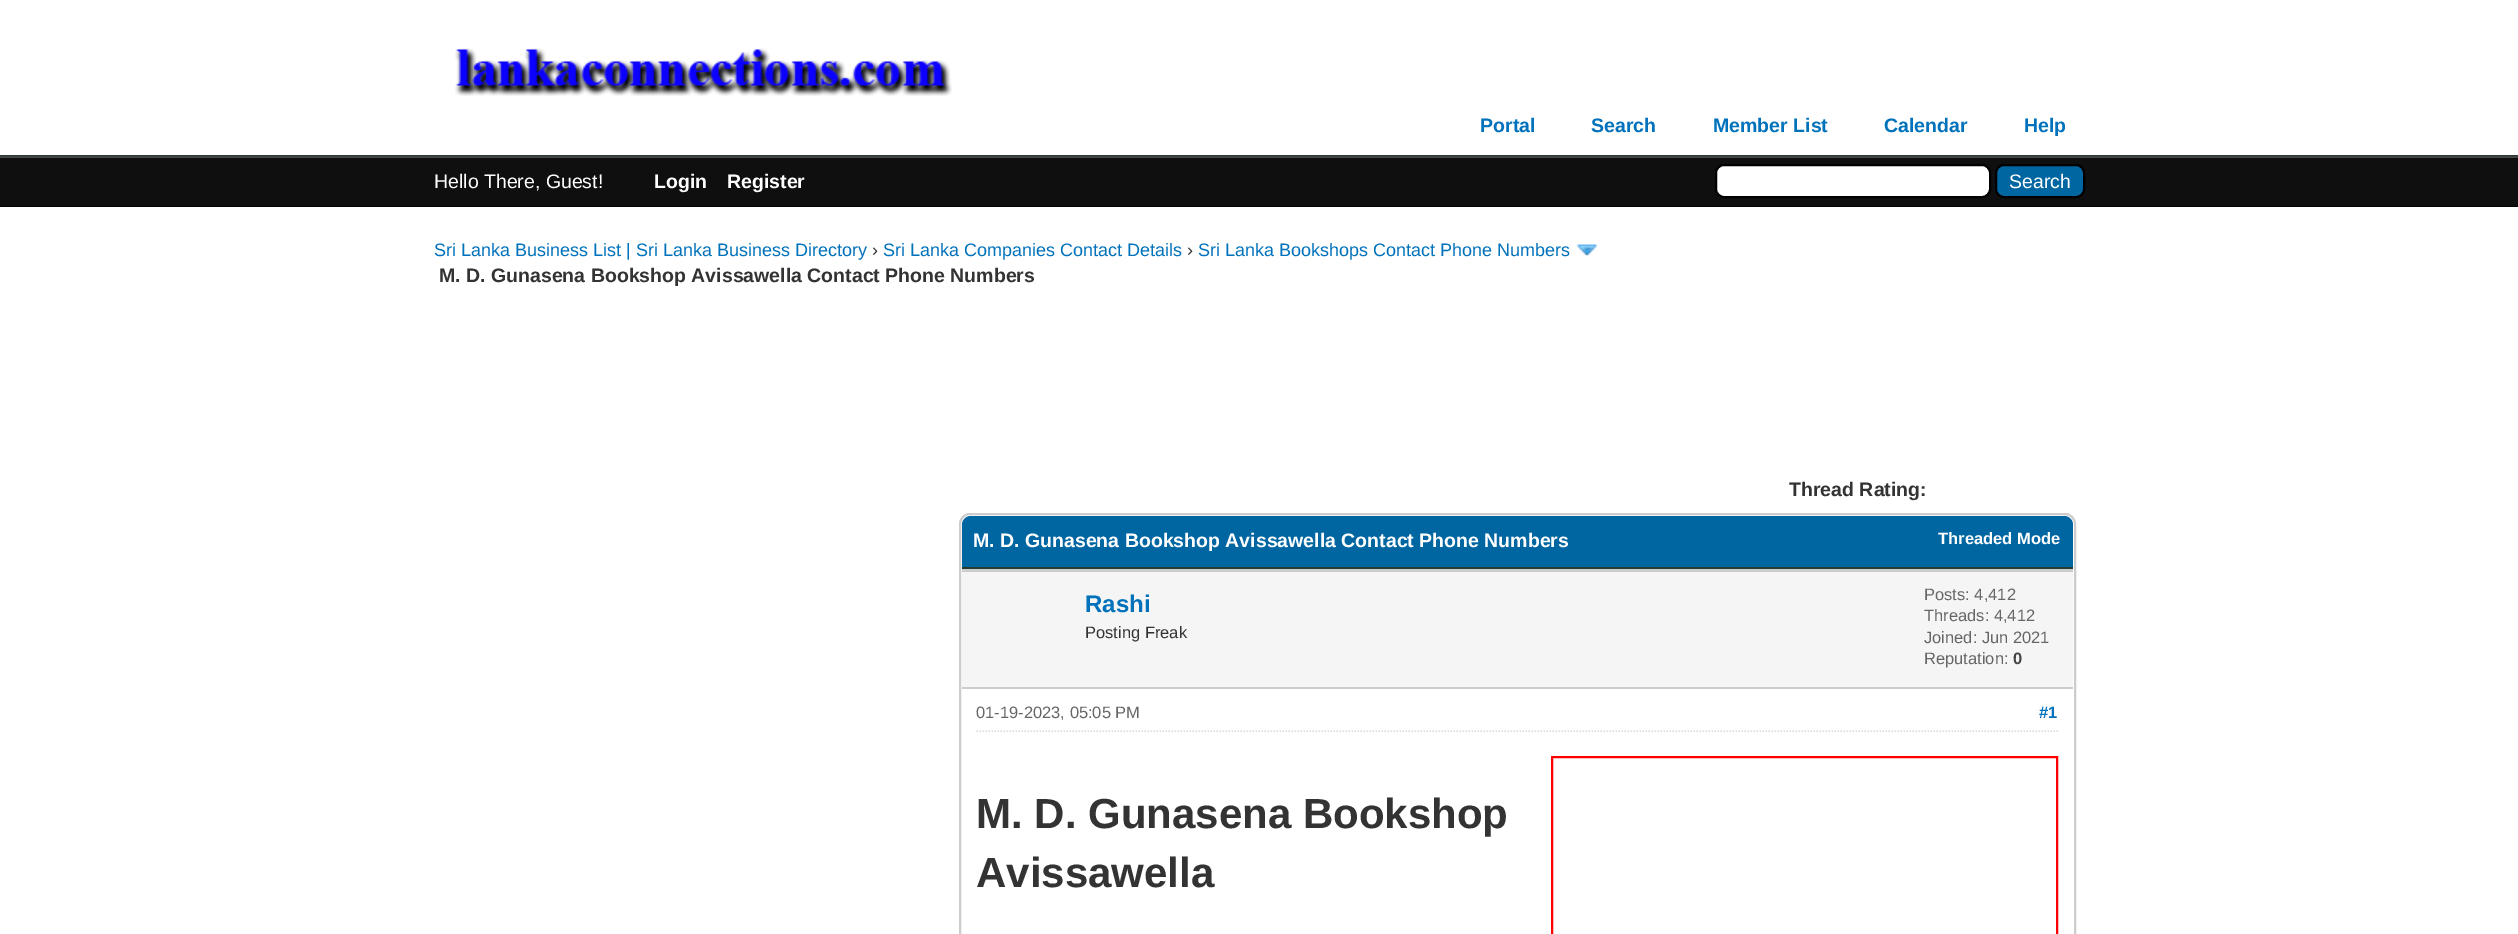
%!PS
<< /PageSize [2518 934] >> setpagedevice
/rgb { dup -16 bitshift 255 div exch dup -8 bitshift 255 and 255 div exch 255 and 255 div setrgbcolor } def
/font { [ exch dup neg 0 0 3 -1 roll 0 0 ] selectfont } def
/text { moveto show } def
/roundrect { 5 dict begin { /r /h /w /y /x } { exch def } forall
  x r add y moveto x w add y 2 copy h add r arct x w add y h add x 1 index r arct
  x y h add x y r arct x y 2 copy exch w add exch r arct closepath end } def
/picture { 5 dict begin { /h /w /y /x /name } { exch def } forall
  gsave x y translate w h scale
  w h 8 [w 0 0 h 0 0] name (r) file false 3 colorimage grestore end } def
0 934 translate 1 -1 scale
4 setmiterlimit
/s1 { /LiberationSans-Bold 19.5 font 16#0072BC rgb } def
/s2 { /LiberationSans-Regular 19.5 font 16#FFFFFF rgb } def
/s3 { /LiberationSans-Bold 19.5 font 16#FFFFFF rgb } def
/s4 { /LiberationSans-Regular 18 font 16#0072BC rgb } def
/s5 { /LiberationSans-Regular 18 font 16#333333 rgb } def
/s6 { /LiberationSans-Bold 19.5 font 16#333333 rgb } def
/s7 { /LiberationSans-Bold 16.5 font 16#FFFFFF rgb } def
/s8 { /LiberationSans-Bold 24 font 16#0072BC rgb } def
/s9 { /LiberationSans-Regular 16.5 font 16#333333 rgb } def
/s10 { /LiberationSans-Regular 16.5 font 16#666666 rgb } def
/s11 { /LiberationSans-Bold 16.5 font 16#444444 rgb } def
/s12 { /LiberationSans-Bold 16.5 font 16#0072BC rgb } def
/s13 { /LiberationSans-Bold 42 font 16#333333 rgb } def
16#FFFFFF rgb
0 0 2518 934 rectfill
16#263C30 rgb
0 155 2518 1 rectfill
(pic1.raw) 455 48 497 48 picture
s1
(Portal) 1480 132 text
(Search) 1591 132 text
(Member List) 1713 132 text
(Calendar) 1884 132 text
(Help) 2024 132 text
16#0F0F0F rgb
0 158 2518 48 rectfill
16#444444 rgb
0 156 2518 2 rectfill
16#000000 rgb
0 206 2518 1 rectfill
s2
(Hello There, Guest!) 434 188 text
s3
(Login) 654 188 text
(Register) 727 188 text
1716 165 274 32 8 roundrect gsave fill grestore
16#000000 rgb
2 setlinewidth
stroke
16#0066A2 rgb
1996 165 88 32 8 roundrect gsave fill grestore
16#000000 rgb
stroke
s2
(Search) 2009 188 text
s4
(Sri Lanka Business List | Sri Lanka Business Directory) 434 256 text
s5
(›) 872 256 text
s4
(Sri Lanka Companies Contact Details) 883 256 text
s5
(›) 1187 256 text
s4
(Sri Lanka Bookshops Contact Phone Numbers) 1198 256 text
(pic2.raw) 1576 244 22 12 picture
s6
(M. D. Gunasena Bookshop Avissawella Contact Phone Numbers) 439 282 text
(Thread Rating:) 1789 496 text
16#CCCCCC rgb
960 514 1115 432 10 roundrect stroke
16#0066A2 rgb
971 516 moveto 2064 516 lineto 2069 516 2073 520 2073 525 curveto 2073 569 lineto 962 569 lineto 962 525 lineto 962 520 966 516 971 516 curveto closepath fill
16#263C30 rgb
962 567 1111 2 rectfill
s3
(M. D. Gunasena Bookshop Avissawella Contact Phone Numbers) 973 547 text
s7
(Threaded Mode) 1938 544 text
16#F5F5F5 rgb
962 572 1111 115 rectfill
16#CCCCCC rgb
962 569 1111 3 rectfill
962 687 1111 2 rectfill
s8
(Rashi) 1085 612 text
s9
(Posting Freak) 1085 638 text
s10
(Posts: 4,412) 1924 600 text
(Threads: 4,412) 1924 621 text
(Joined: Jun 2021) 1924 643 text
(Reputation:) 1924 664 text
s11
(0) 2013 664 text
16#DDDDDD rgb
1.5 setlinewidth
[1.5 1.5] 0 setdash
976.5 731 moveto 2058 731 lineto stroke
s10
(01-19-2023, 05:05 PM) 976 718 text
s12
(#1) 2039 718 text
s13
(M. D. Gunasena Bookshop) 976 828 text
(Avissawella) 976 887 text
16#FF0000 rgb
2 setlinewidth
[] 0 setdash
1552 757 505 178 rectstroke
showpage
